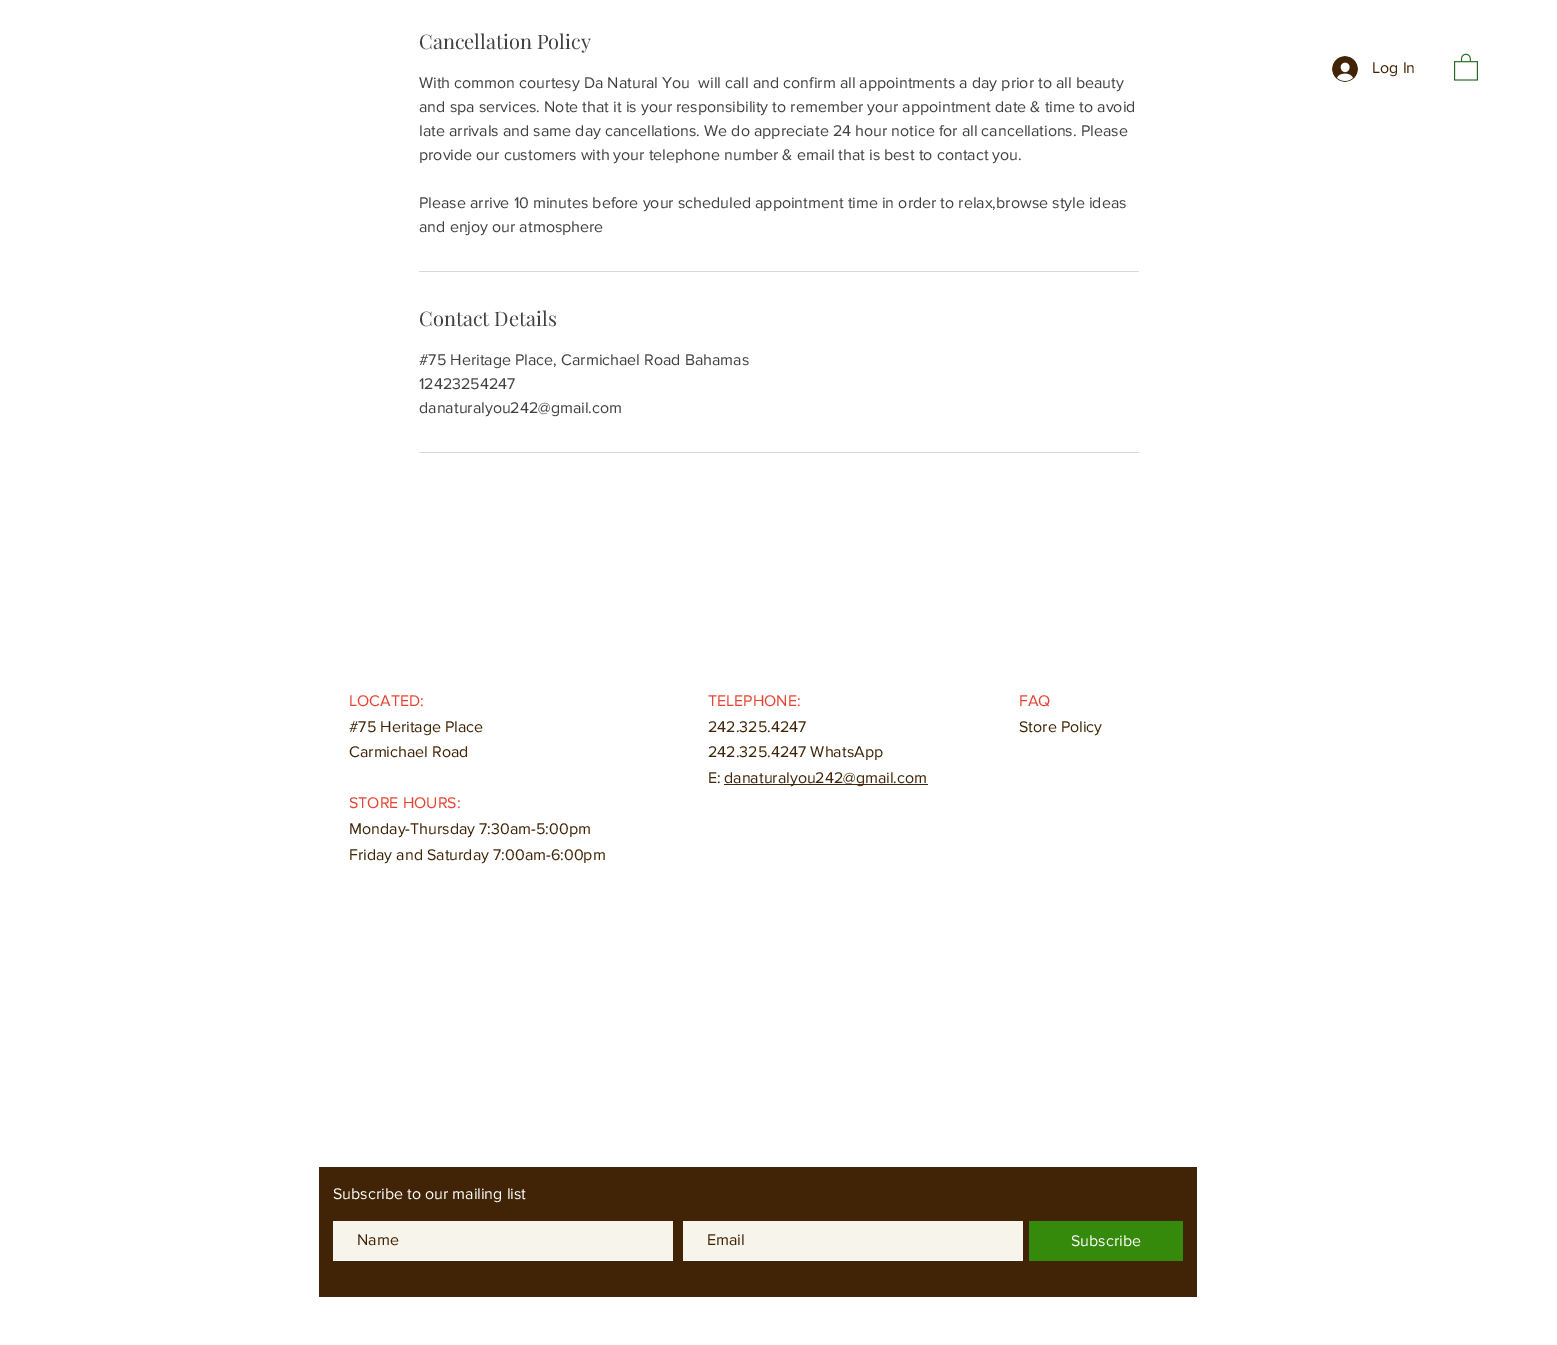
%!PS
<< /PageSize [1557 1345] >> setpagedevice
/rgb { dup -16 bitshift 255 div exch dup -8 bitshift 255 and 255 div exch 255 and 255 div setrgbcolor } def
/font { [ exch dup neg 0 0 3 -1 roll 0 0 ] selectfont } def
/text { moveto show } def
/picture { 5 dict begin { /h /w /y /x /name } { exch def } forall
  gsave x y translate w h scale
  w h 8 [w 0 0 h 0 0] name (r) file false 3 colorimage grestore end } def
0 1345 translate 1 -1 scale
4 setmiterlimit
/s1 { /PlayfairDisplay-Regular 20 font 16#414141 rgb } def
/s2 { /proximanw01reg-Regular 16 font 16#414141 rgb } def
/s3 { /proximanw01reg-Regular 16 font 16#402405 rgb } def
/s4 { /proximanw01reg-Regular 16 font 16#E74131 rgb } def
/s5 { /proximanw01reg-Regular 16 font 16#FFFFFF rgb } def
16#FFFFFF rgb
0 0 1557 1345 rectfill
s1
(Cancellation Policy) 419 49 text
s2
(With common courtesy Da Natural You  will call and confirm all appointments a day prior to all beauty) 419 88 text
(and spa services. Note that it is your responsibility to remember your appointment date & time to avoid) 419 112 text
(late arrivals and same day cancellations. We do appreciate 24 hour notice for all cancellations. Please) 419 136 text
(provide our customers with your telephone number & email that is best to contact you.) 419 160 text
(Please arrive 10 minutes before your scheduled appointment time in order to relax,browse style ideas) 419 208 text
(and enjoy our atmosphere) 419 232 text
16#D9D9D9 rgb
419 271 720 1 rectfill
s1
(Contact Details) 419 326 text
s2
(#75 Heritage Place, Carmichael Road Bahamas) 419 365 text
(12423254247) 419 389 text
(danaturalyou242@gmail.com) 419 413 text
16#D9D9D9 rgb
419 452 720 1 rectfill
(pic1.raw) 1332 56 26 26 picture
s3
(Log In) 1372 73 text
(pic2.raw) 1454 53 24 28 picture
s4
(LOCATED:) 349 706 text
s3
(#75 Heritage Place) 349 732 text
(Carmichael Road) 349 757 text
s4
(STORE HOURS:) 349 808 text
s3
(Monday-Thursday 7:30am-5:00pm) 349 834 text
(Friday and Saturday 7:00am-6:00pm) 349 860 text
s4
(TELEPHONE:) 708 706 text
s3
(242.325.4247) 708 732 text
(242.325.4247 WhatsApp) 708 757 text
(E:) 708 783 text
724 784 204 1 rectfill
(danaturalyou242@gmail.com) 724 783 text
s4
(FAQ) 1019 706 text
s3
(Store Policy) 1019 732 text
319 1167 878 130 rectfill
s5
(Subscribe to our mailing list) 333 1199 text
16#F7F4EB rgb
333 1221 340 39 rectfill
16#FFFFFF rgb
333 1260 340 1 rectfill
s3
(Name) 357 1245 text
16#F7F4EB rgb
683 1221 340 39 rectfill
16#FFFFFF rgb
683 1260 340 1 rectfill
s3
(Email) 707 1245 text
16#358A0B rgb
1029 1221 154 40 rectfill
s5
(Subscribe) 1071 1246 text
showpage
